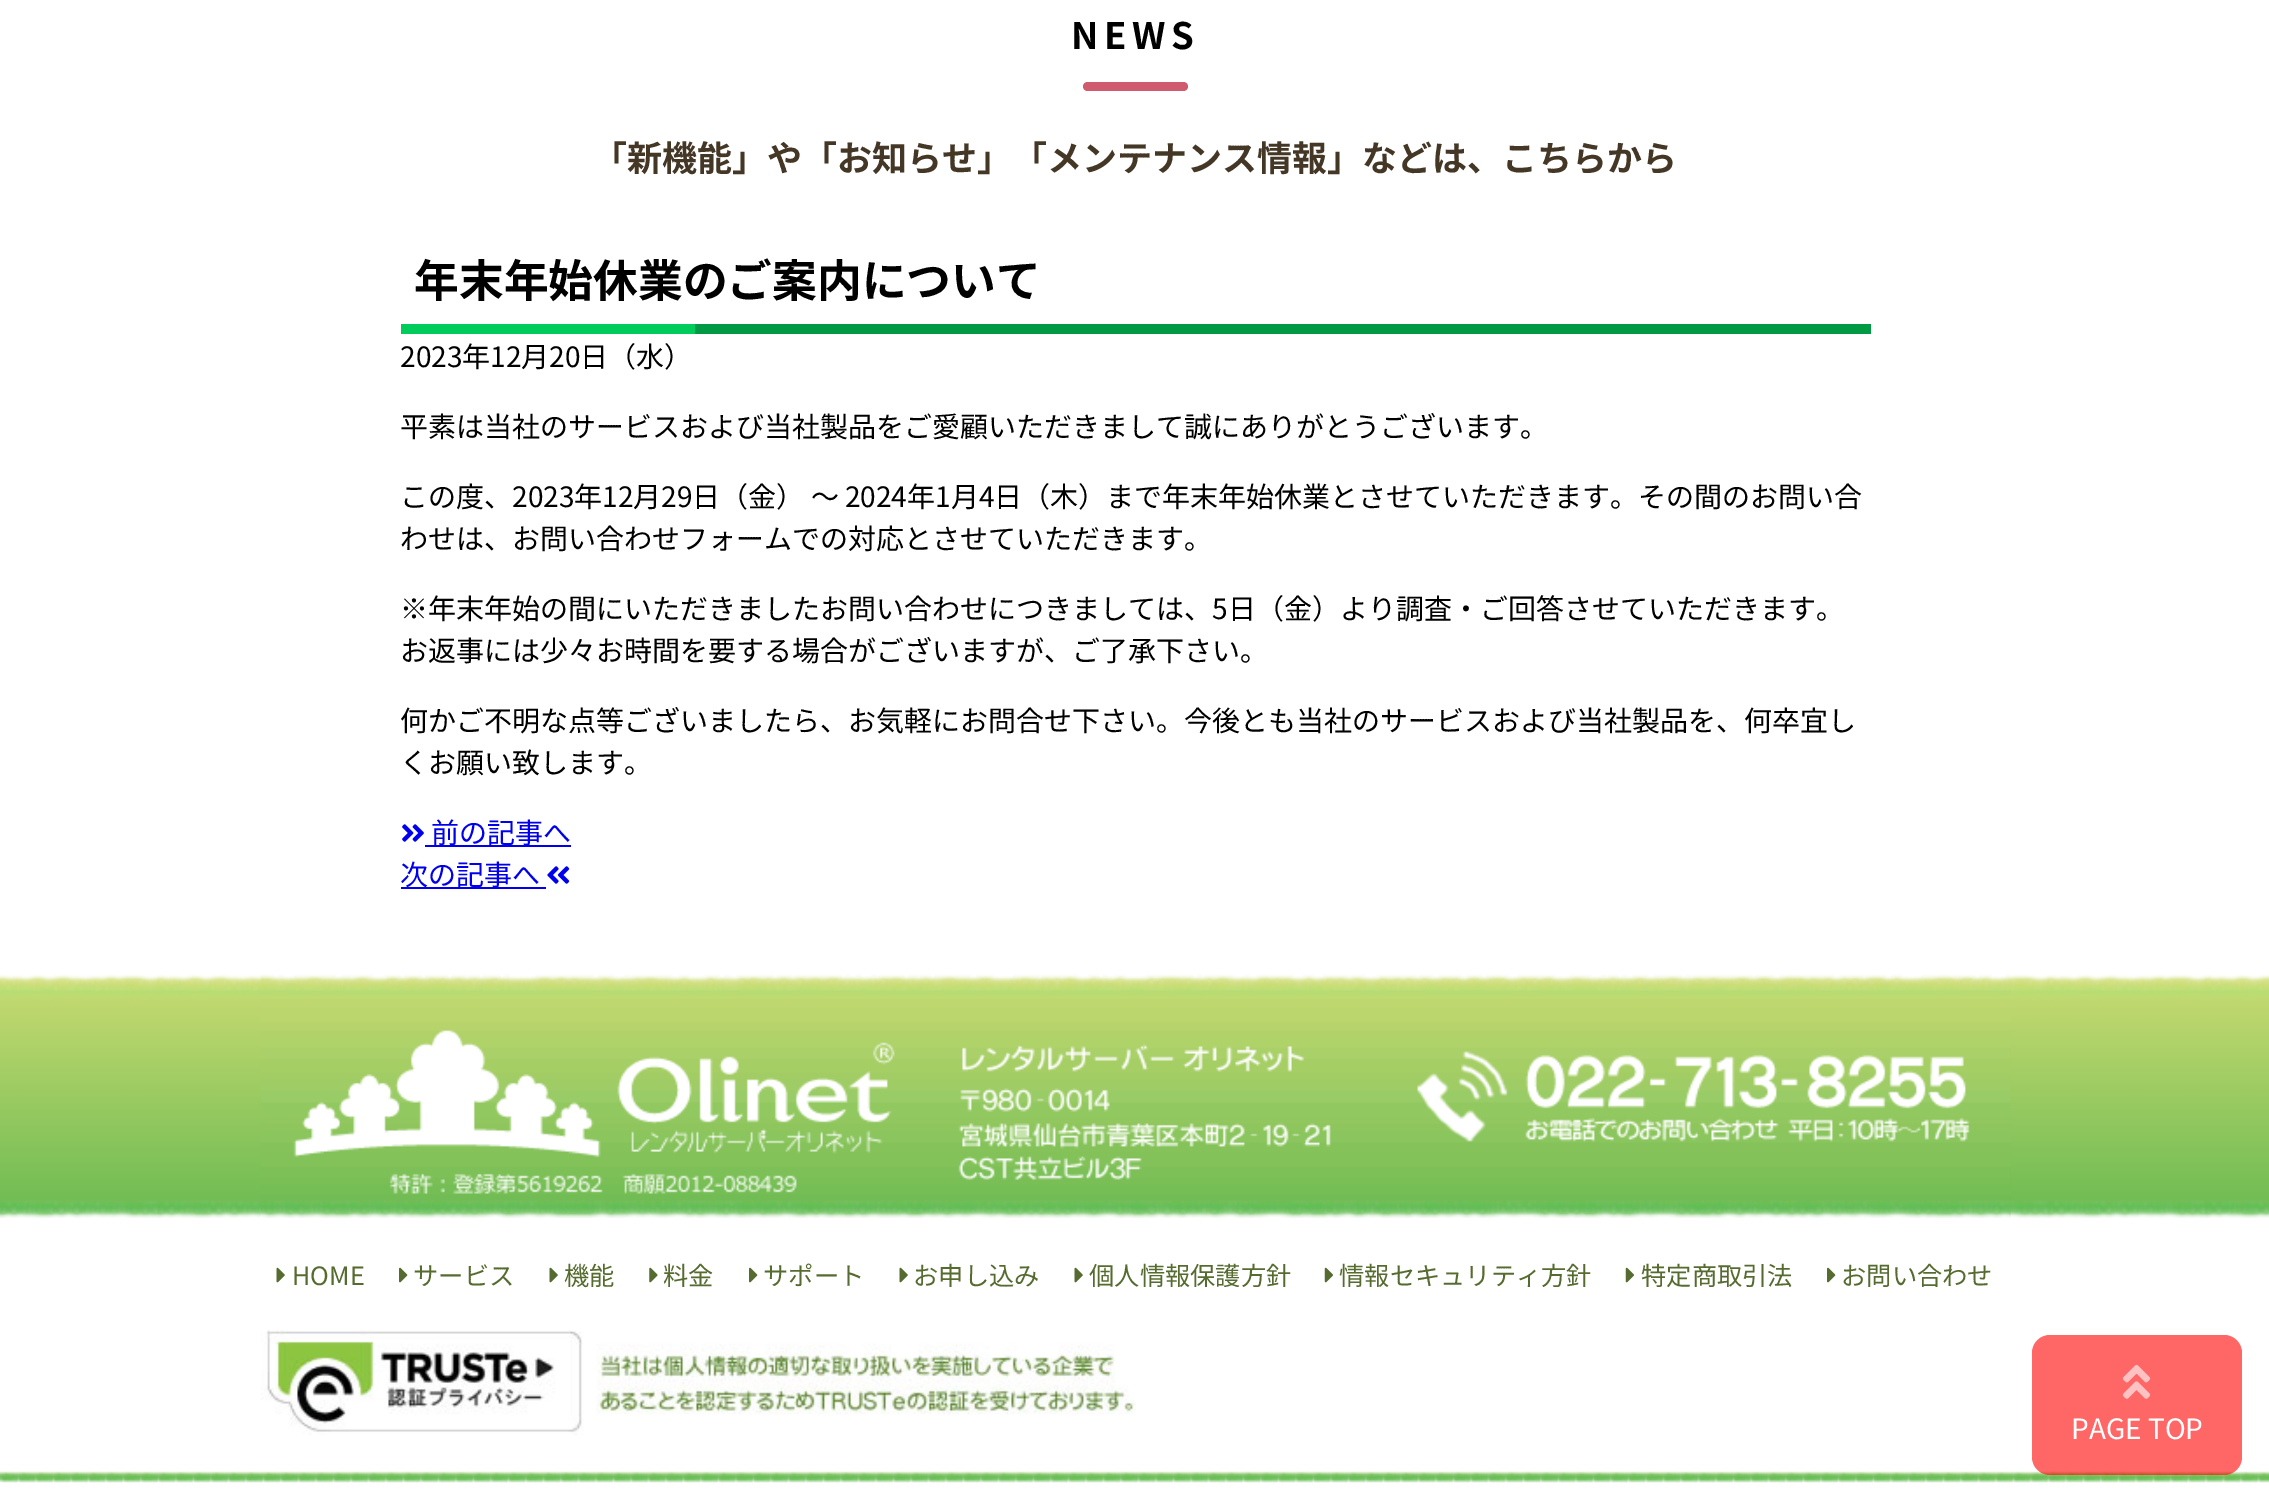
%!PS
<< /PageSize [2269 1502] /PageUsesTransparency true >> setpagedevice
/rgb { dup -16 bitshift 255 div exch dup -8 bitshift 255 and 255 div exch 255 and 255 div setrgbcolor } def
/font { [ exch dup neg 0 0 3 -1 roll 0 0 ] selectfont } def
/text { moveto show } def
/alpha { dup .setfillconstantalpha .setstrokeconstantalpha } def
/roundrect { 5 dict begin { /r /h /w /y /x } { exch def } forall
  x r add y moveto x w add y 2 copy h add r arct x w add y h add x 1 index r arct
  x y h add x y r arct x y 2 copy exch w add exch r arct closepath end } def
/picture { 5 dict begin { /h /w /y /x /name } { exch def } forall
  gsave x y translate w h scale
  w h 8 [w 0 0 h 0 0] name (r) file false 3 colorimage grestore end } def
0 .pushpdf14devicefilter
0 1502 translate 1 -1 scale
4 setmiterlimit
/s1 { /NotoSansJP-Bold 35 font 16#443726 rgb } def
/s2 { /NotoSansJP-Bold 44.75 font 16#000000 rgb } def
/s3 { /NotoSansJP-Regular 28 font 16#000000 rgb } def
/s4 { /NotoSansJP-Regular 28 font 16#0000EE rgb } def
/s5 { /NotoSansJP-Regular 25.25 font 16#556B2F rgb } def
/s6 { /NotoSansJP-Regular 28 font 16#FFFFFF rgb } def
16#FFFFFF rgb
0 0 2269 1502 rectfill
/NotoSansJP-Bold 36.5 font
16#000000 rgb
1071 49 moveto 5.5 0 (NEWS) ashow
16#D05A6E rgb
1083 82 105 9 4.5 roundrect fill
s1
(「新機能」や「お知らせ」「メンテナンス情報」などは、こちらから) 592 171 text
16#009944 rgb
695 324 1176 10 rectfill
s2
(年末年始休業のご案内について) 414 297 text
16#00CC5B rgb
401 324 294 10 rectfill
s3
(2023年12月20日（水）) 400 367 text
(平素は当社のサービスおよび当社製品をご愛顧いただきまして誠にありがとうございます。) 400 437 text
(この度、2023年12月29日（金） ～ 2024年1月4日（木）まで年末年始休業とさせていただきます。その間のお問い合) 400 507 text
(わせは、お問い合わせフォームでの対応とさせていただきます。) 400 549 text
(※年末年始の間にいただきましたお問い合わせにつきましては、5日（金）より調査・ご回答させていただきます。) 400 619 text
(お返事には少々お時間を要する場合がございますが、ご了承下さい。) 400 661 text
(何かご不明な点等ございましたら、お気軽にお問合せ下さい。今後とも当社のサービスおよび当社製品を、何卒宜し) 400 731 text
(くお願い致します。) 400 773 text
(pic1.raw) 402 824 22 18 picture
16#0000EE rgb
425 845 146 2 rectfill
(前の記事へ) 431 843 text
401 887 145 2 rectfill
(次の記事へ) 400 885 text
(pic2.raw) 547 866 23 18 picture
(pic3.raw) 0 974 2269 244 picture
(pic4.raw) 260 974 1751 244 picture
(pic5.raw) 276 1267 9 16 picture
s5
(HOME) 292 1285 text
(pic6.raw) 399 1267 9 16 picture
(サービス) 413 1285 text
(pic5.raw) 549 1267 9 16 picture
(機能) 564 1285 text
(pic7.raw) 649 1267 9 16 picture
(料金) 663 1285 text
(pic6.raw) 749 1267 9 16 picture
(サポート) 763 1285 text
(pic5.raw) 899 1267 9 16 picture
(お申し込み) 913 1285 text
(pic5.raw) 1074 1267 9 16 picture
(個人情報保護方針) 1089 1285 text
(pic8.raw) 1324 1267 9 16 picture
(情報セキュリティ方針) 1339 1285 text
(pic8.raw) 1625 1267 9 16 picture
(特定商取引法) 1641 1285 text
(pic6.raw) 1827 1267 9 16 picture
(お問い合わせ) 1841 1285 text
(pic9.raw) 261 1330 875 105 picture
(pic10.raw) 0 1471 2269 12 picture
0.6 alpha
16#FF0000 rgb
2032 1335 210 140 18 roundrect fill
1 alpha
(pic11.raw) 2122 1364 29 35 picture
s6
(PAGE TOP) 2071 1439 text
.poppdf14devicefilter showpage
